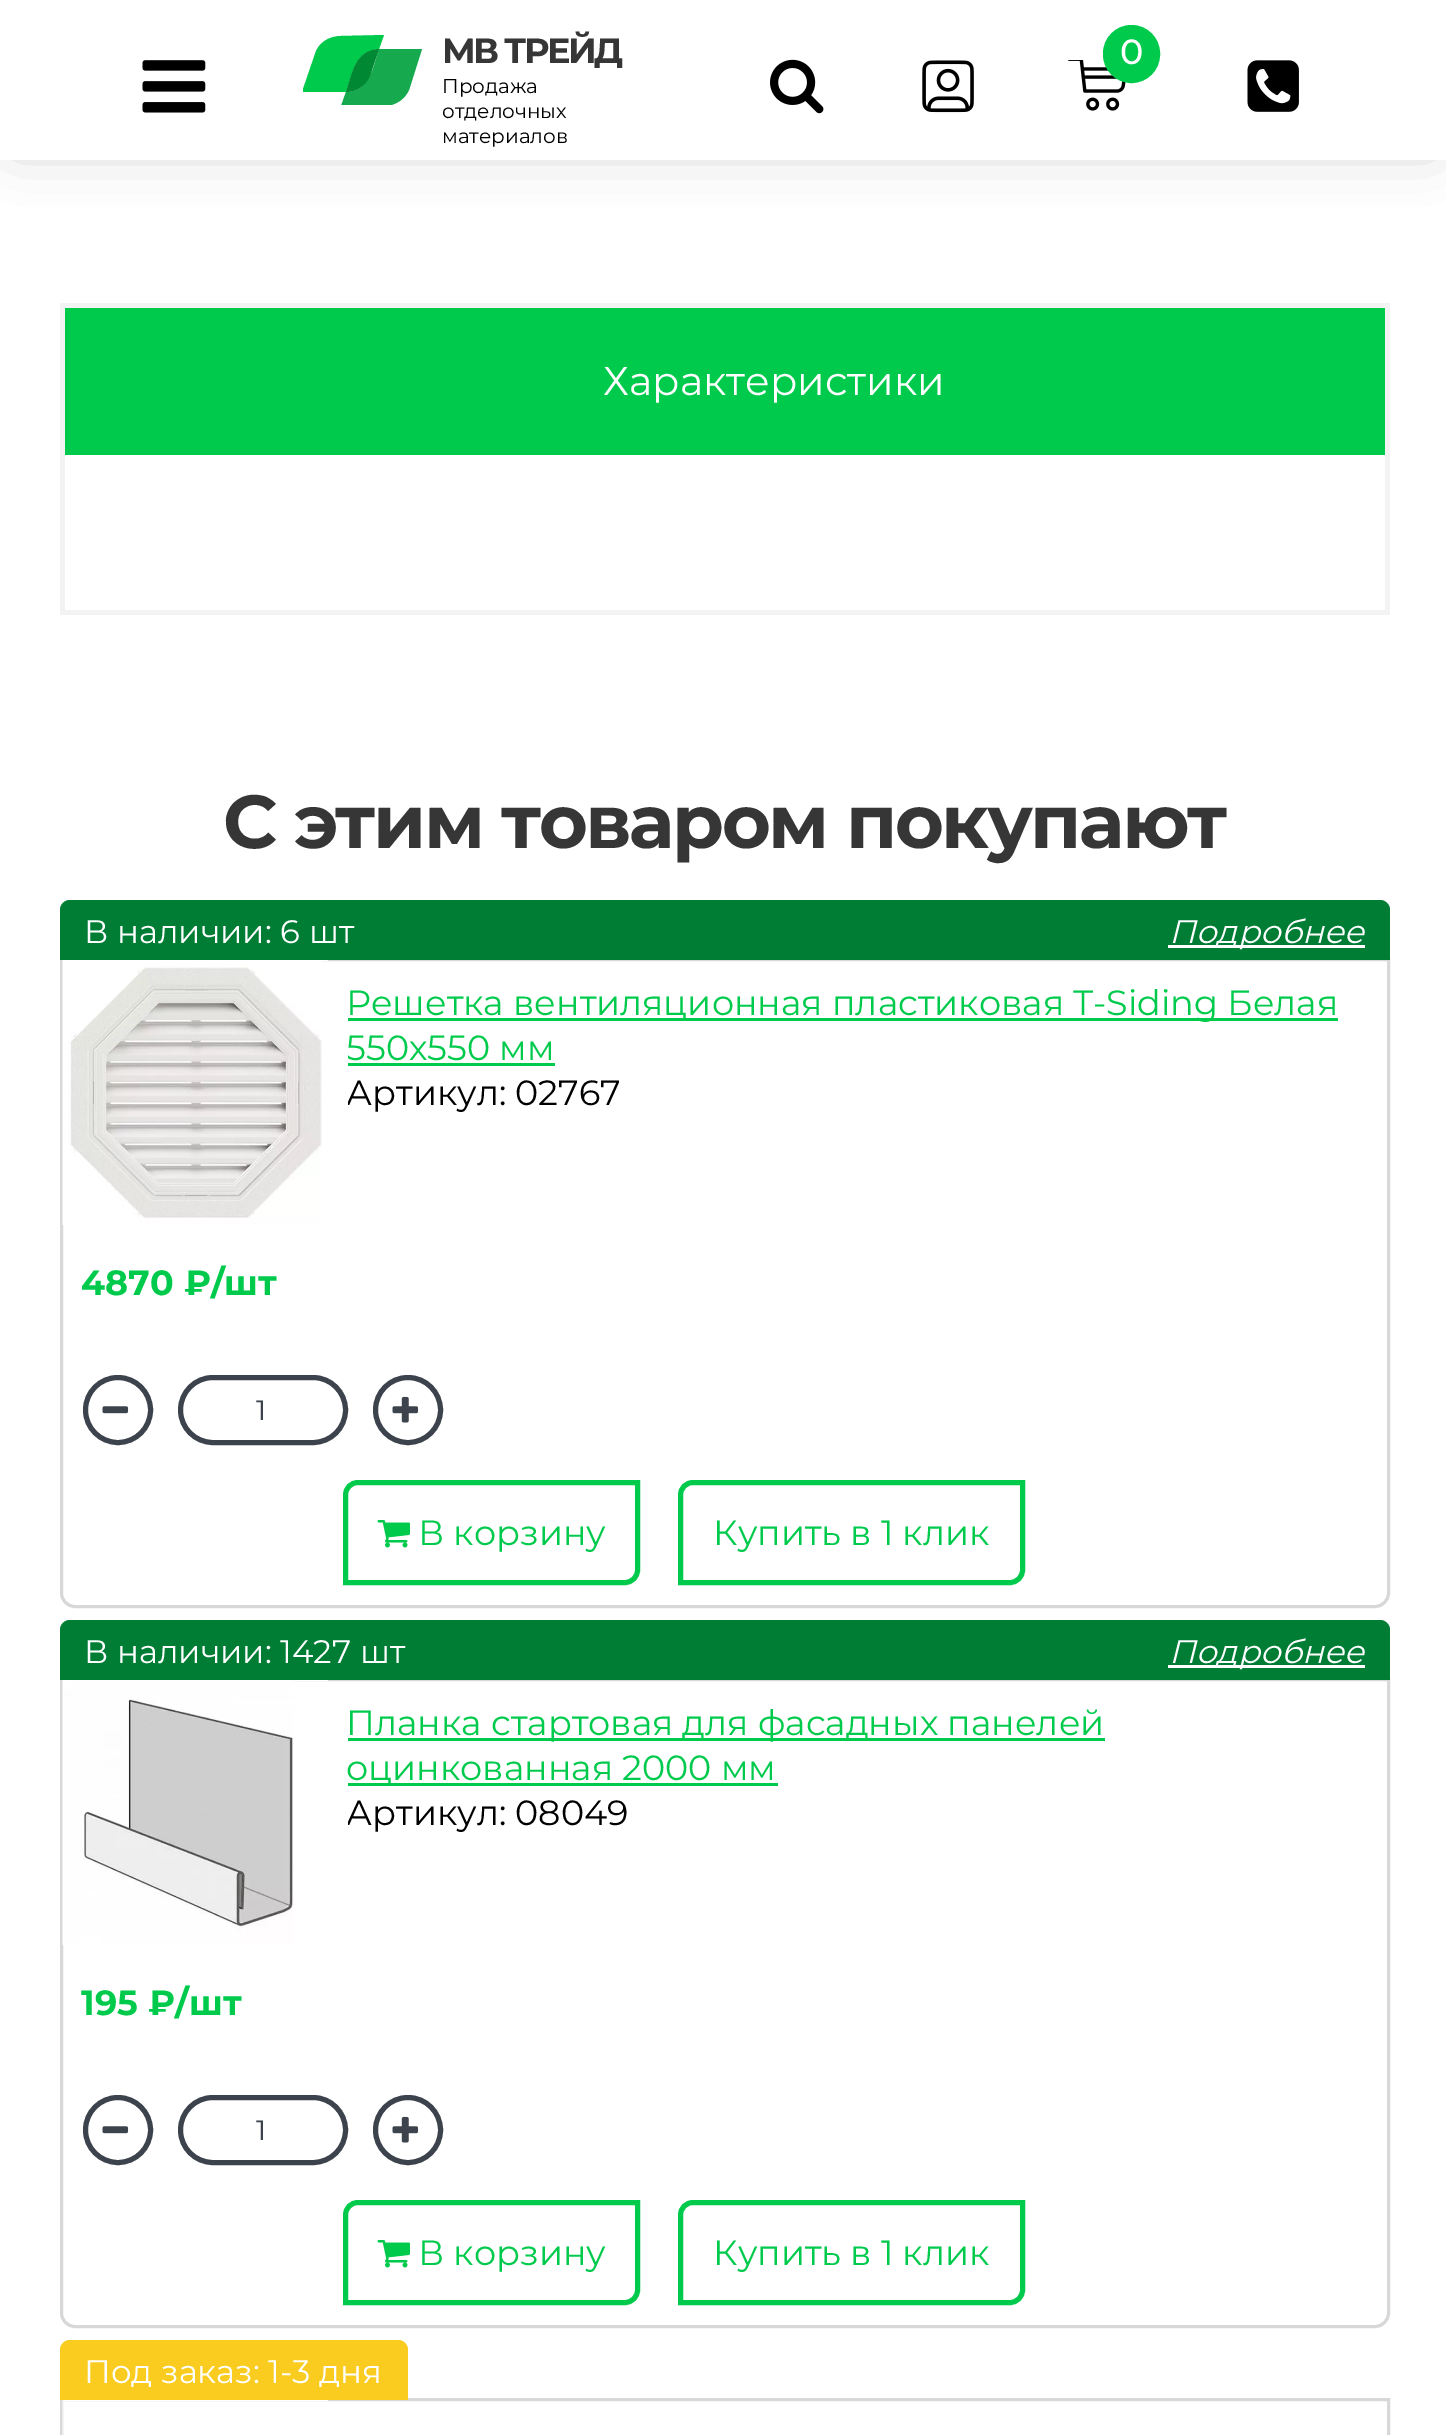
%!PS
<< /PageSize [1446 2435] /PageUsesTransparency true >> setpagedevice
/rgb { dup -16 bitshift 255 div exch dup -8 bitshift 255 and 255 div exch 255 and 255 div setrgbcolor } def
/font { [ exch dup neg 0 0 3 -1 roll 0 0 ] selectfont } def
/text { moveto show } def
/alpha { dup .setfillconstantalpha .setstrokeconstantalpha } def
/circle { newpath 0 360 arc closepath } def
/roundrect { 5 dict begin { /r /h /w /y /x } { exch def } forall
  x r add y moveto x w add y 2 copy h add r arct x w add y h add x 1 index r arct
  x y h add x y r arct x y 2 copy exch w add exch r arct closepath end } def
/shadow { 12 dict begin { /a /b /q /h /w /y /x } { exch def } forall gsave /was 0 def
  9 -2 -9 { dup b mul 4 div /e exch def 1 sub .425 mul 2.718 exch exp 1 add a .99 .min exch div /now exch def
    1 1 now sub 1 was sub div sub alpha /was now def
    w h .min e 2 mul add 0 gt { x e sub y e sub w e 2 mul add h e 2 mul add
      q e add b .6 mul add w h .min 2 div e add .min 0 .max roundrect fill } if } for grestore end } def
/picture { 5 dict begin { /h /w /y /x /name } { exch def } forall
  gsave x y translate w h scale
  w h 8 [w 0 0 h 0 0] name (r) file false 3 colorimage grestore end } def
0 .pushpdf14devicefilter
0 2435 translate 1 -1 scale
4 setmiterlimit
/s1 { /Montserrat-Regular 20 font 16#000000 rgb } def
/s2 { /Montserrat-Medium 35 font 16#FFFFFF rgb } def
/s3 { /Montserrat-Regular 40 font 16#FFFFFF rgb } def
/s4 { /Montserrat-Regular 32.5 font 16#FFFFFF rgb } def
/s5 { /Montserrat-Italic 32.5 font 16#FFFFFF rgb } def
/s6 { /Montserrat-Regular 35 font 16#00CA4C rgb } def
/s7 { /Montserrat-Regular 35 font 16#000000 rgb } def
/s8 { /Montserrat-Bold 35 font 16#00CA4C rgb } def
/s9 { /Montserrat-Regular 28 font 16#3D434C rgb } def
16#FFFFFF rgb
0 0 1446 2435 rectfill
16#C3C3C3 rgb
15 15 1418 130 0 27.5 1 shadow
16#FFFFFF rgb
0 0 1446 160 rectfill
gsave
303 35 120 70 rectclip
16#00CA4C rgb
379 49 moveto 384 35 lineto 341 36 lineto 329 36 318 43 315 54 curveto 302 92 lineto 346 92 lineto 352 74 355 50 379 49 curveto closepath fill
16#17A94E rgb
380 49 moveto 379 49 lineto 373 67 370 92 346 92 curveto 341 106 lineto 384 106 lineto 396 106 407 98 410 87 curveto 422 49 lineto closepath fill
grestore
16#008833 rgb
371 73 moveto 379 49 lineto 355 50 352 74 346 92 curveto 358 92 368 84 371 73 curveto closepath fill
/Montserrat-Bold 35 font
16#363636 rgb
442 63 moveto -2.5 0 (МВ ТРЕЙД) ashow
s1
(Продажа) 442 93 text
(отделочных) 442 118 text
(материалов) 442 143 text
(pic1.raw) 1068 60 58 51 picture
16#00CA4C rgb
1105.5 27.5 52 53 26 roundrect gsave fill grestore
5 setlinewidth
stroke
s2
(0) 1120 64 text
(pic2.raw) 142 60 64 53 picture
(pic3.raw) 770 59 54 55 picture
(pic4.raw) 922 60 52 53 picture
(pic5.raw) 1247 60 52 52 picture
16#F3F3F3 rgb
60 303 1330 5 rectfill
1385 308 5 307 rectfill
60 610 1330 5 rectfill
60 308 5 307 rectfill
16#00CA4C rgb
65 308 1320 147 rectfill
s3
(Характеристики) 603 395 text
/Montserrat-Bold 75 font
16#363636 rgb
223 848 moveto -2.5 0 (С этим товаром покупают) ashow
16#D8D8D8 rgb
3 setlinewidth
61.5 959.5 moveto 1388.5 959.5 lineto 1388.5 1593 lineto 1388.5 1600.5 1382.5 1606.5 1375 1606.5 curveto 75 1606.5 lineto 67.5 1606.5 61.5 1600.5 61.5 1593 curveto closepath stroke
16#007D35 rgb
70 900 moveto 1380 900 lineto 1385.5 900 1390 904.5 1390 910 curveto 1390 960 lineto 60 960 lineto 60 910 lineto 60 904.5 64.5 900 70 900 curveto closepath fill
s4
(В наличии: 6 шт) 84 943 text
1168 945 197 3 rectfill
s5
(Подробнее) 1169 943 text
322 960 6 1 rectfill
(pic6.raw) 62 960 260 265 picture
16#00CA4C rgb
348 1018 990 3 rectfill
s6
(Решетка вентиляционная пластиковая T-Siding Белая) 346 1015 text
gsave
348 980 1020 153 rectclip
(550х550 мм) 346 1060 text
grestore
348 1063 207 3 rectfill
gsave
348 1070 1020 50 rectclip
s7
(Артикул: 02767) 346 1105 text
grestore
s8
(4870 ₽/шт) 81 1295 text
16#3D434C rgb
5 setlinewidth
118 1410 32.5 circle stroke
(pic7.raw) 102 1406 27 8 picture
180.5 1377.5 165 65 32.5 roundrect stroke
s9
(1) 256 1420 text
408 1410 32.5 circle stroke
(pic8.raw) 392 1396 27 27 picture
16#00CA4C rgb
358 1482.5 moveto 637.5 1482.5 lineto 637.5 1570 lineto 637.5 1577 632 1582.5 625 1582.5 curveto 345.5 1582.5 lineto 345.5 1495 lineto 345.5 1488 351 1482.5 358 1482.5 curveto closepath stroke
(pic9.raw) 377 1520 33 28 picture
s6
(В корзину) 418 1545 text
693 1482.5 moveto 1022.5 1482.5 lineto 1022.5 1570 lineto 1022.5 1577 1017 1582.5 1010 1582.5 curveto 680.5 1582.5 lineto 680.5 1495 lineto 680.5 1488 686 1482.5 693 1482.5 curveto closepath stroke
(Купить в 1 клик) 713 1545 text
16#D8D8D8 rgb
3 setlinewidth
61.5 1679.5 moveto 1388.5 1679.5 lineto 1388.5 2313 lineto 1388.5 2320.5 1382.5 2326.5 1375 2326.5 curveto 75 2326.5 lineto 67.5 2326.5 61.5 2320.5 61.5 2313 curveto closepath stroke
16#007D35 rgb
70 1620 moveto 1380 1620 lineto 1385.5 1620 1390 1624.5 1390 1630 curveto 1390 1680 lineto 60 1680 lineto 60 1630 lineto 60 1624.5 64.5 1620 70 1620 curveto closepath fill
s4
(В наличии: 1427 шт) 84 1663 text
1168 1665 197 3 rectfill
s5
(Подробнее) 1169 1663 text
294 1680 34 1 rectfill
(pic10.raw) 62 1680 232 265 picture
16#00CA4C rgb
348 1738 757 3 rectfill
s6
(Планка стартовая для фасадных панелей) 346 1735 text
348 1783 430 3 rectfill
(оцинкованная 2000 мм) 346 1780 text
gsave
348 1790 1020 50 rectclip
s7
(Артикул: 08049) 346 1825 text
grestore
s8
(195 ₽/шт) 81 2015 text
16#3D434C rgb
5 setlinewidth
118 2130 32.5 circle stroke
(pic7.raw) 102 2126 27 8 picture
180.5 2097.5 165 65 32.5 roundrect stroke
s9
(1) 256 2140 text
408 2130 32.5 circle stroke
(pic8.raw) 392 2116 27 27 picture
16#00CA4C rgb
358 2202.5 moveto 637.5 2202.5 lineto 637.5 2290 lineto 637.5 2297 632 2302.5 625 2302.5 curveto 345.5 2302.5 lineto 345.5 2215 lineto 345.5 2208 351 2202.5 358 2202.5 curveto closepath stroke
(pic9.raw) 377 2240 33 28 picture
s6
(В корзину) 418 2265 text
693 2202.5 moveto 1022.5 2202.5 lineto 1022.5 2290 lineto 1022.5 2297 1017 2302.5 1010 2302.5 curveto 680.5 2302.5 lineto 680.5 2215 lineto 680.5 2208 686 2202.5 693 2202.5 curveto closepath stroke
(Купить в 1 клик) 713 2265 text
16#D8D8D8 rgb
3 setlinewidth
61.5 2399.5 1327 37 rectstroke
16#FACC1F rgb
70 2340 moveto 398 2340 lineto 403.5 2340 408 2344.5 408 2350 curveto 408 2400 lineto 60 2400 lineto 60 2350 lineto 60 2344.5 64.5 2340 70 2340 curveto closepath fill
s4
(Под заказ: 1-3 дня) 84 2383 text
63 2400 265 1 rectfill
16#ECECEC rgb
62 2400 1 35 rectfill
.poppdf14devicefilter showpage
